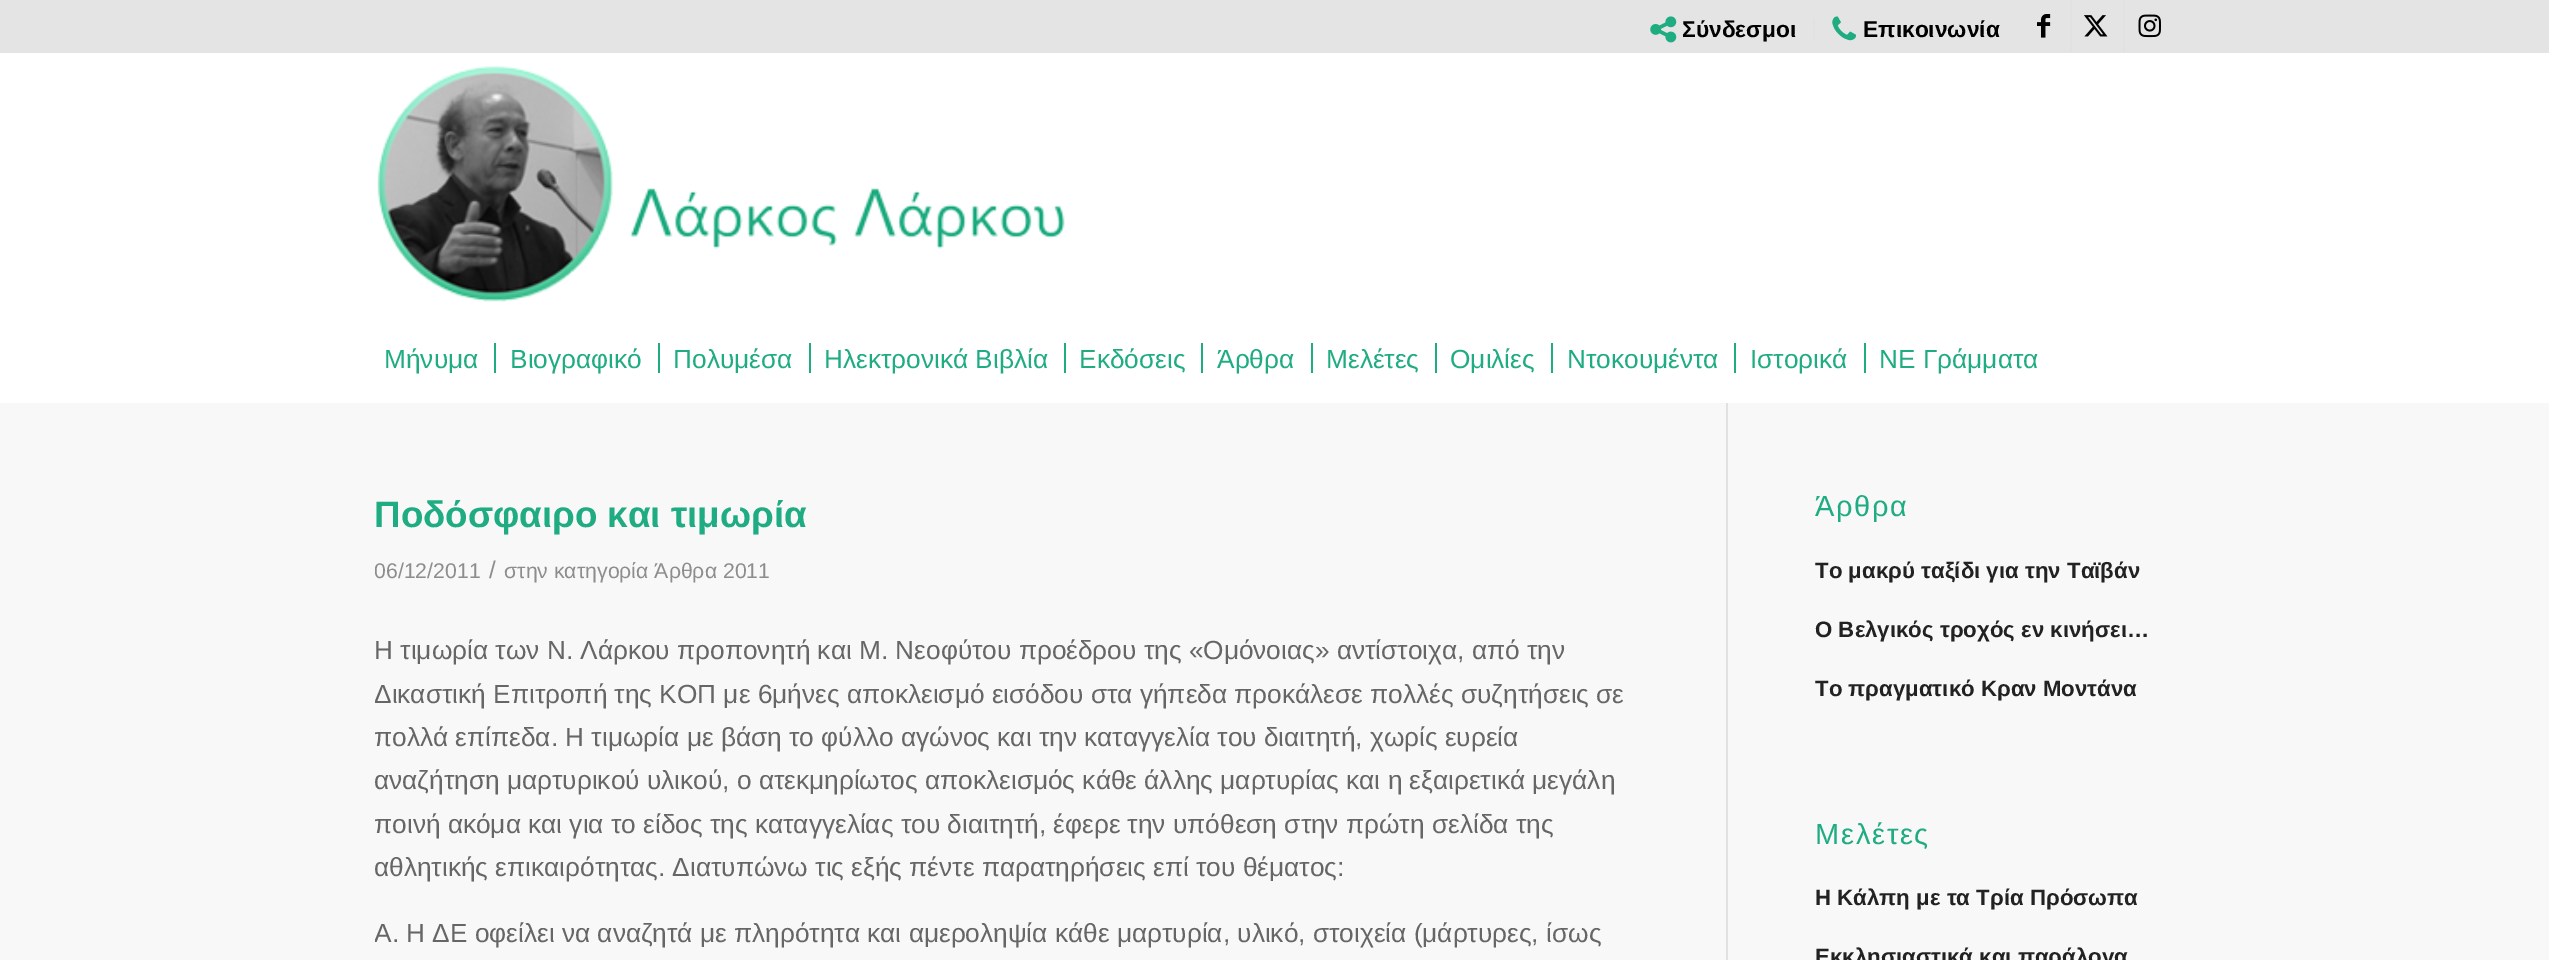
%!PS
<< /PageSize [2549 960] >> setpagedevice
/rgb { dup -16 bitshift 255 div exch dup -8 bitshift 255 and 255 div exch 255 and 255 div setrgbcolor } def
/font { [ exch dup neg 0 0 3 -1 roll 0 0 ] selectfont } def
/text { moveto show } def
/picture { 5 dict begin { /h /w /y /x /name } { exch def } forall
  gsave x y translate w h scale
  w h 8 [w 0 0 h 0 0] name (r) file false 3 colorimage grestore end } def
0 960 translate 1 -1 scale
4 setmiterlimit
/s1 { /LiberationSans-Bold 22.75 font 16#000000 rgb } def
/s2 { /LiberationSans-Regular 26.25 font 16#1FAC82 rgb } def
/s3 { /LiberationSans-Bold 36.75 font 16#1FAC82 rgb } def
/s4 { /LiberationSans-Regular 21.25 font 16#8D8D8D rgb } def
/s5 { /LiberationSans-Regular 24 font 16#8D8D8D rgb } def
/s6 { /LiberationSans-Regular 26.25 font 16#666666 rgb } def
/s7 { /LiberationSans-Bold 22.25 font 16#222222 rgb } def
16#FFFFFF rgb
0 0 2549 960 rectfill
16#E4E4E4 rgb
0 0 2549 53 rectfill
16#E1E1E1 rgb
1813 18 2 22 rectfill
(pic1.raw) 1650 16 27 27 picture
s1
(Σύνδεσμοι) 1682 37 text
(pic2.raw) 1832 16 25 25 picture
(Επικοινωνία) 1863 37 text
16#E1E1E1 rgb
2070 0 2 53 rectfill
(pic3.raw) 2037 14 14 24 picture
2123 0 2 53 rectfill
(pic4.raw) 2084 15 24 22 picture
(pic5.raw) 2138 14 23 24 picture
(pic6.raw) 377 66 688 236 picture
s2
(Μήνυμα) 384 368 text
(Βιογραφικό) 510 368 text
16#1FAC81 rgb
494 343 2 30 rectfill
s2
(Πολυμέσα) 673 368 text
16#1FAC81 rgb
658 343 2 30 rectfill
s2
(Ηλεκτρονικά Βιβλία) 824 368 text
16#1FAC81 rgb
809 343 2 30 rectfill
s2
(Εκδόσεις) 1079 368 text
16#1FAC81 rgb
1064 343 2 30 rectfill
s2
(Άρθρα) 1217 368 text
16#1FAC81 rgb
1201 343 2 30 rectfill
s2
(Μελέτες) 1326 368 text
16#1FAC81 rgb
1311 343 2 30 rectfill
s2
(Ομιλίες) 1450 368 text
16#1FAC81 rgb
1435 343 2 30 rectfill
s2
(Ντοκουμέντα) 1567 368 text
16#1FAC81 rgb
1551 343 2 30 rectfill
s2
(Ιστορικά) 1750 368 text
16#1FAC81 rgb
1734 343 2 30 rectfill
s2
(ΝΕ Γράμματα) 1879 368 text
16#1FAC81 rgb
1864 343 2 30 rectfill
16#F8F8F8 rgb
0 403 2549 557 rectfill
16#E1E1E1 rgb
1726 403 2 557 rectfill
s3
(Ποδόσφαιρο και τιμωρία) 374 527 text
gsave
375 490 1351 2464 rectclip
s4
(06/12/2011) 374 578 text
grestore
s5
(/) 489 578 text
s4
(στην κατηγορία Άρθρα 2011) 504 578 text
s6
(Η τιμωρία των Ν. Λάρκου προπονητή και Μ. Νεοφύτου προέδρου της «Ομόνοιας» αντίστοιχα, από την) 374 659 text
gsave
375 490 1351 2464 rectclip
(Δικαστική Επιτροπή της ΚΟΠ με 6μήνες αποκλεισμό εισόδου στα γήπεδα προκάλεσε πολλές συζητήσεις σε) 374 703 text
(πολλά επίπεδα. Η τιμωρία με βάση το φύλλο αγώνος και την καταγγελία του διαιτητή, χωρίς ευρεία) 374 746 text
(αναζήτηση μαρτυρικού υλικού, ο ατεκμηρίωτος αποκλεισμός κάθε άλλης μαρτυρίας και η εξαιρετικά μεγάλη) 374 789 text
(ποινή ακόμα και για το είδος της καταγγελίας του διαιτητή, έφερε την υπόθεση στην πρώτη σελίδα της) 374 833 text
(αθλητικής επικαιρότητας. Διατυπώνω τις εξής πέντε παρατηρήσεις επί του θέματος:) 374 876 text
(Α. Η ΔΕ οφείλει να αναζητά με πληρότητα και αμεροληψία κάθε μαρτυρία, υλικό, στοιχεία \(μάρτυρες, ίσως) 374 942 text
grestore
/LiberationSans-Regular 29 font
16#1FAC82 rgb
1815 516 moveto 1.75 0 (Άρθρα) ashow
s7
(Tο μακρύ ταξίδι για την Ταϊβάν) 1815 578 text
(Ο Βελγικός τροχός εν κινήσει…) 1815 637 text
(Το πραγματικό Κραν Μοντάνα) 1815 696 text
/LiberationSans-Regular 29 font
16#1FAC82 rgb
1815 844 moveto 1.75 0 (Μελέτες) ashow
s7
(Η Κάλπη με τα Τρία Πρόσωπα) 1815 905 text
(Εκκλησιαστικά και παράλογα) 1815 964 text
showpage
